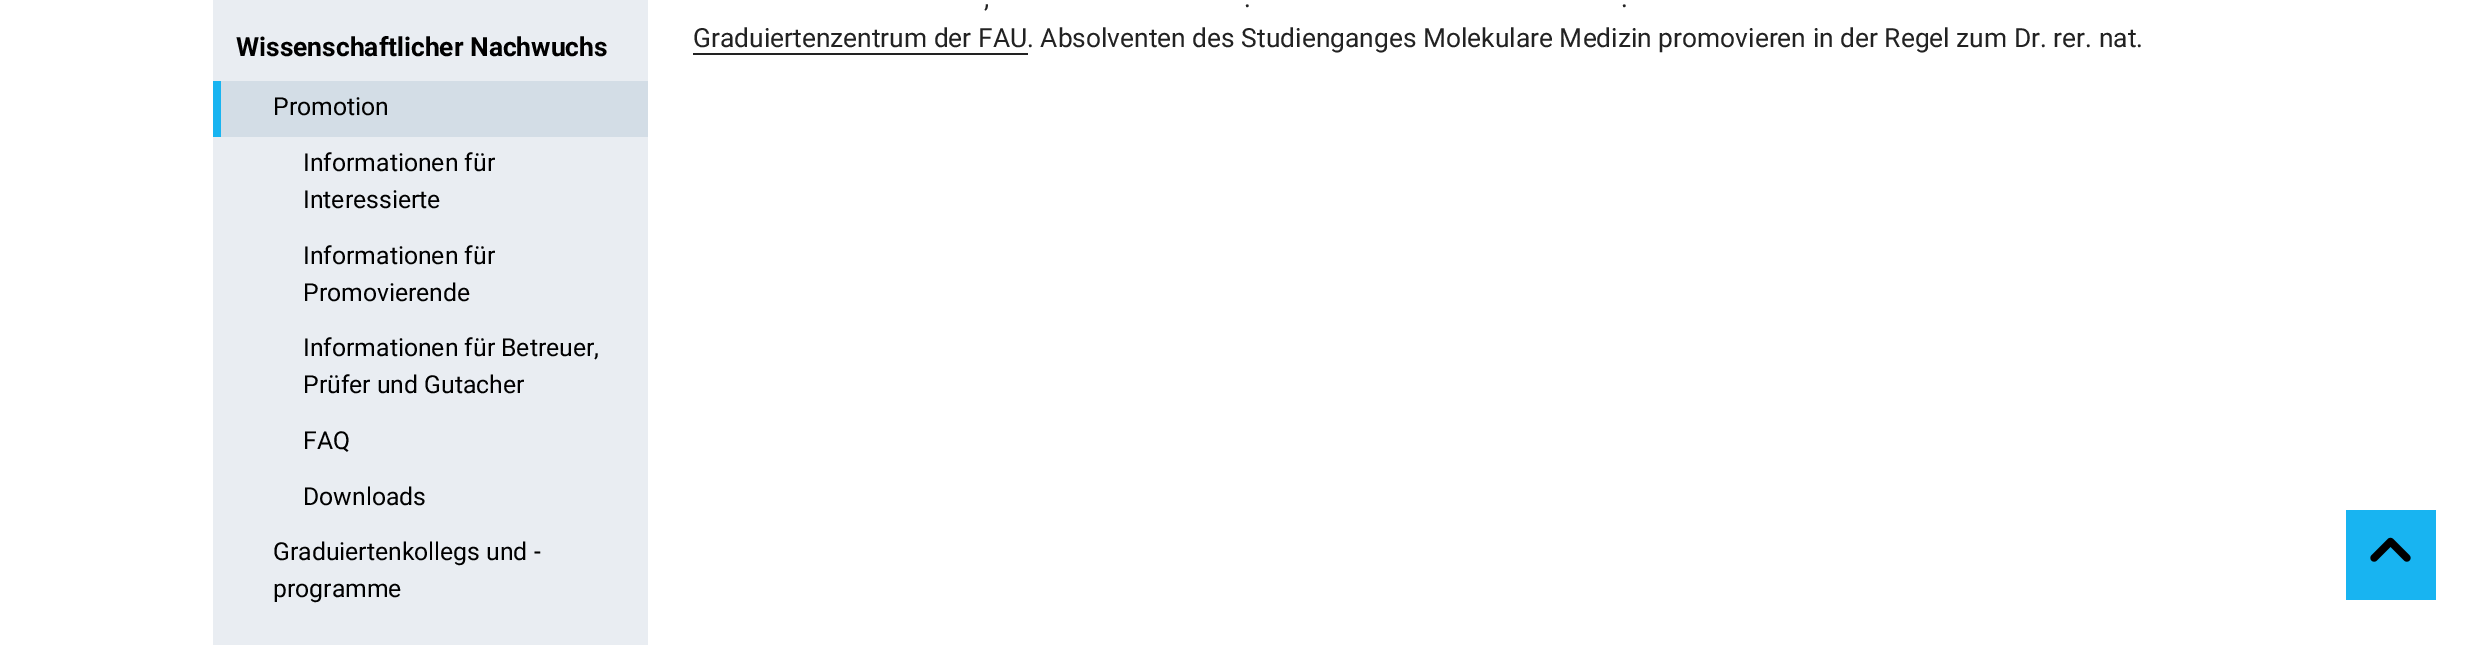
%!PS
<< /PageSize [2481 645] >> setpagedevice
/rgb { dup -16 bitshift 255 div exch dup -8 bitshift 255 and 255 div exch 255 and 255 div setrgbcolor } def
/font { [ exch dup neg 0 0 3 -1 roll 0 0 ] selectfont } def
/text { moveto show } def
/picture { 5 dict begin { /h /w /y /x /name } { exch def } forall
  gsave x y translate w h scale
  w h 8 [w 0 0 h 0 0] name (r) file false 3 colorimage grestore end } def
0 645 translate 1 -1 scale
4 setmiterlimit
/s1 { /Roboto-Regular 26.4 font 16#222222 rgb } def
/s2 { /Roboto-Bold 26.4 font 16#000000 rgb } def
/s3 { /Roboto-Regular 24.75 font 16#000000 rgb } def
16#FFFFFF rgb
0 0 2481 645 rectfill
s1
(,) 984 7 text
(.) 1244 7 text
(.) 1621 7 text
(Graduiertenzentrum der FAU. Absolventen des Studienganges Molekulare Medizin promovieren in der Regel zum Dr. rer. nat.) 693 47 text
693 53 335 2 rectfill
16#E9EDF2 rgb
213 0 435 645 rectfill
s2
(Wissenschaftlicher Nachwuchs) 236 56 text
16#D3DDE6 rgb
221 81 427 56 rectfill
16#18B4F1 rgb
213 81 8 56 rectfill
s3
(Promotion) 273 115 text
(Informationen für) 303 171 text
(Interessierte) 303 208 text
(Informationen für) 303 264 text
(Promovierende) 303 301 text
(Informationen für Betreuer,) 303 356 text
(Prüfer und Gutacher) 303 393 text
(FAQ) 303 449 text
(Downloads) 303 505 text
(Graduiertenkollegs und -) 273 560 text
(programme) 273 597 text
16#18B4F1 rgb
2346 510 90 90 rectfill
(pic1.raw) 2370 537 41 25 picture
showpage
